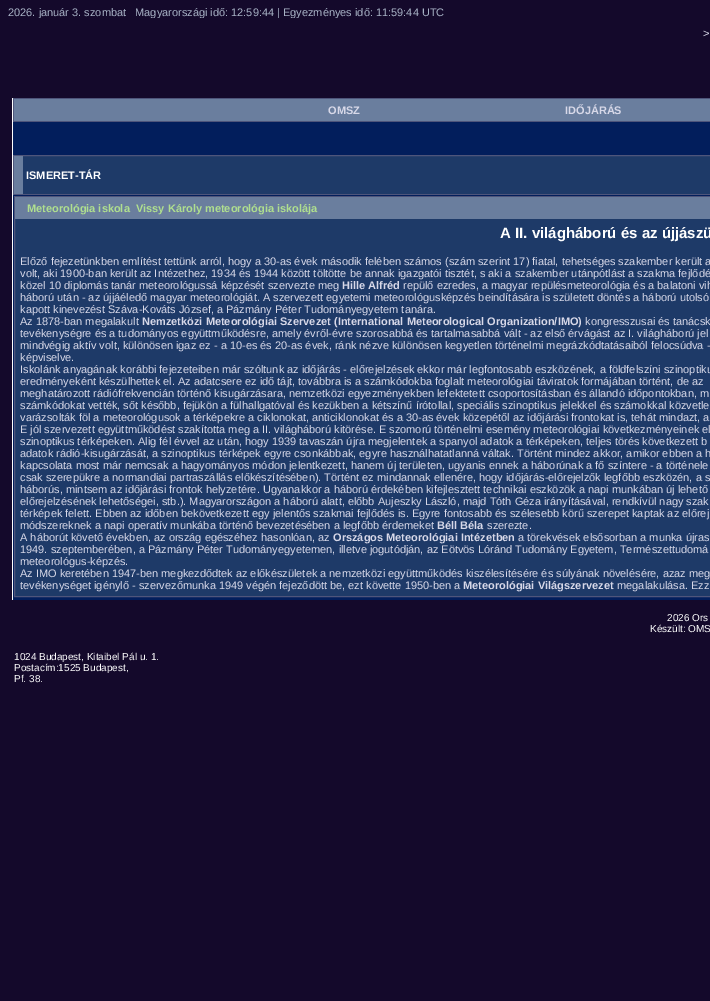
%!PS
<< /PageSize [710 1001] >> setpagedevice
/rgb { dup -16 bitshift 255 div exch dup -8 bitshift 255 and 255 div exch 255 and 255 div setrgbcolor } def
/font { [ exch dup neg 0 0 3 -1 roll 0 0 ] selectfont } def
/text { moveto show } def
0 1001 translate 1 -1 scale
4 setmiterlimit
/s1 { /LiberationSans-Regular 11 font 16#A8B3C6 rgb } def
/s2 { /LiberationSans-Regular 11 font 16#D7D8E8 rgb } def
/s3 { /LiberationSans-Bold 11 font 16#D7D8E8 rgb } def
/s4 { /LiberationSans-Bold 11 font 16#FFFFFF rgb } def
/s5 { /LiberationSans-Bold 11 font 16#AFDF8F rgb } def
/s6 { /LiberationSans-Bold 15 font 16#FFFFFF rgb } def
/s7 { /LiberationSans-Regular 10 font 16#FFFFFF rgb } def
16#14092B rgb
0 0 710 1001 rectfill
gsave
8 6 470 12 rectclip
s1
(2026. január 3. szombat   Magyarországi idő: 12:59:44 | Egyezményes idő: 11:59:44 UTC) 8 16 text
grestore
s2
(>) 703 37 text
16#FFFFFF rgb
12 98 1 502 rectfill
16#4E557B rgb
13.5 98.5 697 23 rectstroke
16#6A7E9E rgb
14 99 696 22 rectfill
s3
(OMSZ) 328 114 text
(IDŐJÁRÁS) 565 114 text
16#021E5C rgb
13 122 697 33 rectfill
16#1E3A68 rgb
23 156 687 38 rectfill
16#4E557B rgb
13.5 155.5 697 39 rectstroke
16#6A7E9E rgb
14 156 9 38 rectfill
s4
(ISMERET-TÁR) 26 179 text
16#021E5C rgb
13 195 697 405 rectfill
16#1E3A68 rgb
15 219 695 377 rectfill
16#4E557B rgb
14.5 196.5 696 400 rectstroke
16#6A7E9E rgb
15 197 695 22 rectfill
s5
(Meteorológia iskola  Vissy Károly meteorológia iskolája) 27 212 text
s6
(A II. világháború és az újjászü) 500 238 text
s2
(Előző fejezetünkben említést tettünk arról, hogy a 30-as évek második felében számos \(szám szerint 17\) fiatal, tehetséges szakember került a) 20 265 text
(volt, aki 1900-ban került az Intézethez, 1934 és 1944 között töltötte be annak igazgatói tisztét, s aki a szakember utánpótlást a szakma fejlődé) 20 277 text
(közel 10 diplomás tanár meteorológussá képzését szervezte meg) 20 289 text
s3
(Hille Alfréd) 342 289 text
s2
(repülő ezredes, a magyar repülésmeteorológia és a balatoni vih) 403 289 text
(háború után - az újjáéledő magyar meteorológiát. A szervezett egyetemi meteorológusképzés beindítására is született döntés a háború utolsó) 20 301 text
(kapott kinevezést Száva-Kováts József, a Pázmány Péter Tudományegyetem tanára.) 20 313 text
(Az 1878-ban megalakult) 20 325 text
s3
(Nemzetközi Meteorológiai Szervezet \(International Meteorological Organization/IMO\)) 142 325 text
s2
(kongresszusai és tanácsk) 585 325 text
(tevékenységre és a tudományos együttműködésre, amely évről-évre szorosabbá és tartalmasabbá vált - az első érvágást az I. világháború jel) 20 337 text
(mindvégig aktív volt, különösen igaz ez - a 10-es és 20-as évek, ránk nézve különösen kegyetlen történelmi megrázkódtatásaiból felocsúdva -) 20 349 text
(képviselve.) 20 361 text
(Iskolánk anyagának korábbi fejezeteiben már szóltunk az időjárás - előrejelzések ekkor már legfontosabb eszközének, a földfelszíni szinoptiku) 20 373 text
(eredményeként készülhettek el. Az adatcsere ez idő tájt, továbbra is a számkódokba foglalt meteorológiai táviratok formájában történt, de az) 20 385 text
(meghatározott rádiófrekvencián történő kisugárzásara, nemzetközi egyezményekben lefektetett csoportosításban és állandó időpontokban, m) 20 397 text
(számkódokat vették, sőt később, fejükön a fülhallgatóval és kezükben a kétszínű írótollal, speciális szinoptikus jelekkel és számokkal közvetle) 20 409 text
(varázsolták föl a meteorológusok a térképekre a ciklonokat, anticiklonokat és a 30-as évek közepétől az időjárási frontokat is, tehát mindazt, a) 20 421 text
(E jól szervezett együttműködést szakította meg a II. világháború kitörése. E szomorú történelmi esemény meteorológiai következményeinek el) 20 433 text
(szinoptikus térképeken. Alig fél évvel az után, hogy 1939 tavaszán újra megjelentek a spanyol adatok a térképeken, teljes törés következett b) 20 445 text
(adatok rádió-kisugárzását, a szinoptikus térképek egyre csonkábbak, egyre használhatatlanná váltak. Történt mindez akkor, amikor ebben a h) 20 457 text
(kapcsolata most már nemcsak a hagyományos módon jelentkezett, hanem új területen, ugyanis ennek a háborúnak a fő színtere - a történele) 20 469 text
(csak szerepükre a normandiai partraszállás előkészítésében\). Történt ez mindannak ellenére, hogy időjárás-előrejelzők legfőbb eszközén, a s) 20 481 text
(háborús, mintsem az időjárási frontok helyzetére. Ugyanakkor a háború érdekében kifejlesztett technikai eszközök a napi munkában új lehető) 20 493 text
(előrejelzésének lehetőségei, stb.\). Magyarországon a háború alatt, előbb Aujeszky László, majd Tóth Géza irányításával, rendkívül nagy szak) 20 505 text
(térképek felett. Ebben az időben bekövetkezett egy jelentős szakmai fejlődés is. Egyre fontosabb és szélesebb körű szerepet kaptak az előrej) 20 517 text
(módszereknek a napi operatív munkába történő bevezetésében a legfőbb érdemeket) 20 529 text
s3
(Béll Béla) 437 529 text
s2
(szerezte.) 487 529 text
(A háborút követő években, az ország egészéhez hasonlóan, az) 20 541 text
s3
(Országos Meteorológiai Intézetben) 333 541 text
s2
(a törekvések elsősorban a munka újras) 518 541 text
(1949. szeptemberében, a Pázmány Péter Tudományegyetemen, illetve jogutódján, az Eötvös Lóránd Tudomány Egyetem, Természettudomá) 20 553 text
(meteorológus-képzés.) 20 565 text
(Az IMO keretében 1947-ben megkezdődtek az előkészületek a nemzetközi együttműködés kiszélesítésére és súlyának növelésére, azaz meg) 20 577 text
(tevékenységet igénylő - szervezőmunka 1949 végén fejeződött be, ezt követte 1950-ben a) 20 589 text
s3
(Meteorológiai Világszervezet) 463 589 text
s2
(megalakulása. Ezz) 617 589 text
s7
(2026 Ors) 667 621 text
(Készült: OMS) 650 632 text
(1024 Budapest, Kitaibel Pál u. 1.) 14 660 text
(Postacím:1525 Budapest,) 14 671 text
(Pf. 38.) 14 682 text
showpage
